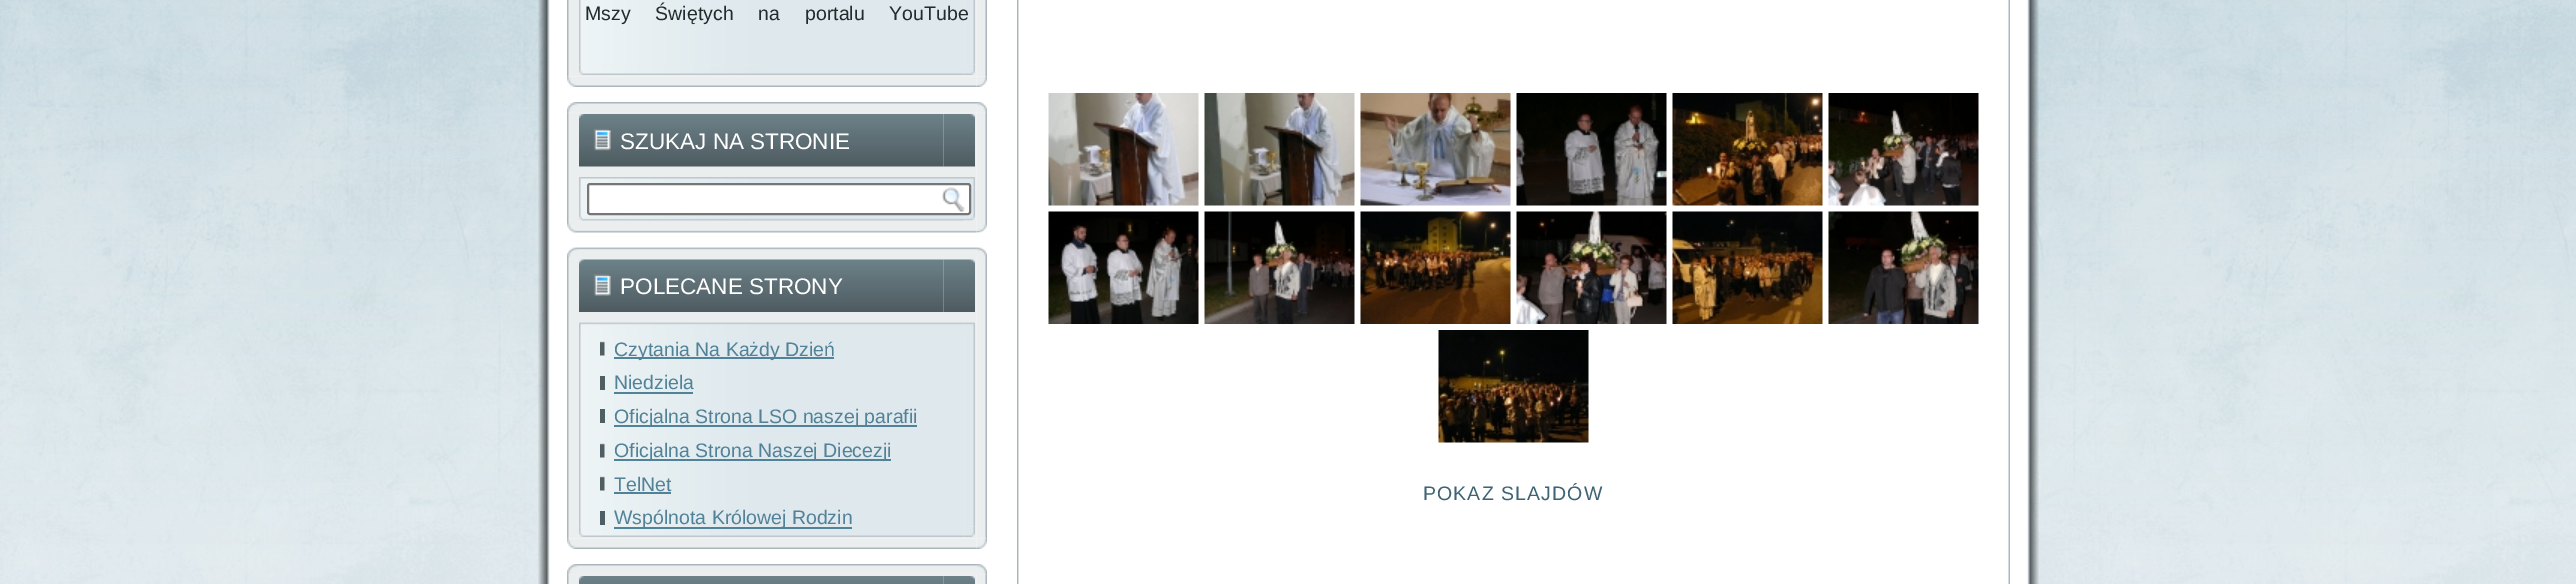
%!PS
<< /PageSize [2576 584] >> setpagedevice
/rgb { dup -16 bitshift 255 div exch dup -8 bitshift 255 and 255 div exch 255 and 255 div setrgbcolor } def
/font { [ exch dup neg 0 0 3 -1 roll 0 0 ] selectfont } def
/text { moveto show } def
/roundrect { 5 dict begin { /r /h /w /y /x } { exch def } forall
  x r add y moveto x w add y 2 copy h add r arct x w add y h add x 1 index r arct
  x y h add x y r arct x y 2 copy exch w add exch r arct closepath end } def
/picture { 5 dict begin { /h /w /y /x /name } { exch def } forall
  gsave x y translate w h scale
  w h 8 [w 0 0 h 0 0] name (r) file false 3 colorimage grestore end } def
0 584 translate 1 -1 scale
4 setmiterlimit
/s1 { /LiberationSans-Regular 22.5 font 16#FFFFFF rgb } def
/s2 { /LiberationSans-Regular 19.5 font 16#528298 rgb } def
16#FFFFFF rgb
0 0 2576 584 rectfill
(pic1.raw) 0 0 2576 584 picture
(pic2.raw) 538 0 479 584 picture
(pic3.raw) 1976 0 63 584 picture
(pic10.raw) 567 76 410 11 picture
(pic4.raw) 567 0 410 77 picture
(pic5.raw) 976 0 11 77 picture
(pic8.raw) 579 64 386 11 picture
(pic6.raw) 579 0 386 65 picture
(pic7.raw) 965 0 10 65 picture
/LiberationSans-Regular 19.5 font
16#242B2D rgb
585 20 moveto 19.5 0 32 (Mszy Świętych na portalu YouTube) widthshow
(pic9.raw) 964 64 11 11 picture
(pic11.raw) 976 76 11 11 picture
(pic12.raw) 567 102 410 131 picture
(pic13.raw) 567 102 410 11 picture
(pic16.raw) 567 112 410 110 picture
(pic17.raw) 976 112 11 110 picture
(pic14.raw) 976 102 11 131 picture
(pic15.raw) 976 102 11 11 picture
(pic18.raw) 579 114 365 53 picture
(pic19.raw) 943 114 32 53 picture
s1
(SZUKAJ NA STRONIE) 620 149 text
(pic20.raw) 579 177 386 44 picture
(pic21.raw) 579 177 386 11 picture
(pic26.raw) 971 187 4 23 picture
(pic22.raw) 964 177 11 44 picture
(pic23.raw) 974 177 1 11 picture
(pic24.raw) 579 187 8 23 picture
588 184 382 30 2 roundrect gsave fill grestore
16#767676 rgb
2 setlinewidth
stroke
(pic25.raw) 942 187 23 25 picture
(pic27.raw) 567 247 410 302 picture
(pic28.raw) 567 247 410 11 picture
(pic31.raw) 567 258 410 281 picture
(pic32.raw) 976 258 11 281 picture
(pic29.raw) 976 247 11 302 picture
(pic30.raw) 976 247 11 10 picture
(pic33.raw) 579 259 365 53 picture
(pic34.raw) 943 259 32 53 picture
s1
(POLECANE STRONY) 620 294 text
(pic35.raw) 579 322 386 215 picture
(pic36.raw) 579 322 386 3 picture
(pic39.raw) 579 333 386 194 picture
(pic40.raw) 965 333 10 194 picture
(pic37.raw) 964 322 11 215 picture
(pic38.raw) 965 322 10 2 picture
(pic41.raw) 600 341 5 15 picture
16#528298 rgb
614 357 220 2 rectfill
s2
(Czytania Na Każdy Dzień) 614 356 text
16#4F5E63 rgb
600 376 5 14 rectfill
s2
(Niedziela) 614 389 text
614 392 79 2 rectfill
16#4F5E63 rgb
600 409 5 14 rectfill
16#528298 rgb
614 425 303 2 rectfill
(Oficjalna Strona LSO naszej parafii) 614 423 text
(pic41.raw) 600 443 5 15 picture
614 459 277 2 rectfill
(Oficjalna Strona Naszej Diecezji) 614 457 text
(pic41.raw) 600 476 5 15 picture
(TelNet) 614 491 text
614 492 57 2 rectfill
16#4F5E63 rgb
600 511 5 14 rectfill
16#528298 rgb
614 527 238 2 rectfill
(Wspólnota Królowej Rodzin) 614 524 text
(pic42.raw) 567 564 410 11 picture
(pic13.raw) 567 564 410 11 picture
(pic44.raw) 567 574 410 10 picture
(pic45.raw) 976 574 11 10 picture
(pic43.raw) 976 564 11 11 picture
(pic15.raw) 976 564 11 11 picture
(pic46.raw) 579 576 365 8 picture
(pic47.raw) 943 576 32 8 picture
(pic48.raw) 1017 0 959 584 picture
(pic49.raw) 2008 0 2 584 picture
(pic50.raw) 1048 93 151 113 picture
(pic51.raw) 1204 93 151 113 picture
(pic52.raw) 1360 93 151 113 picture
(pic53.raw) 1516 93 151 113 picture
(pic54.raw) 1672 93 151 113 picture
(pic55.raw) 1828 93 151 113 picture
(pic56.raw) 1048 211 151 113 picture
(pic57.raw) 1204 211 151 113 picture
(pic58.raw) 1360 211 151 113 picture
(pic59.raw) 1516 211 151 113 picture
(pic60.raw) 1672 211 151 113 picture
(pic61.raw) 1828 211 151 113 picture
(pic62.raw) 1438 330 151 113 picture
16#3E6374 rgb
1423 500 moveto 1.1 0 (POKAZ SLAJDÓW) ashow
showpage
